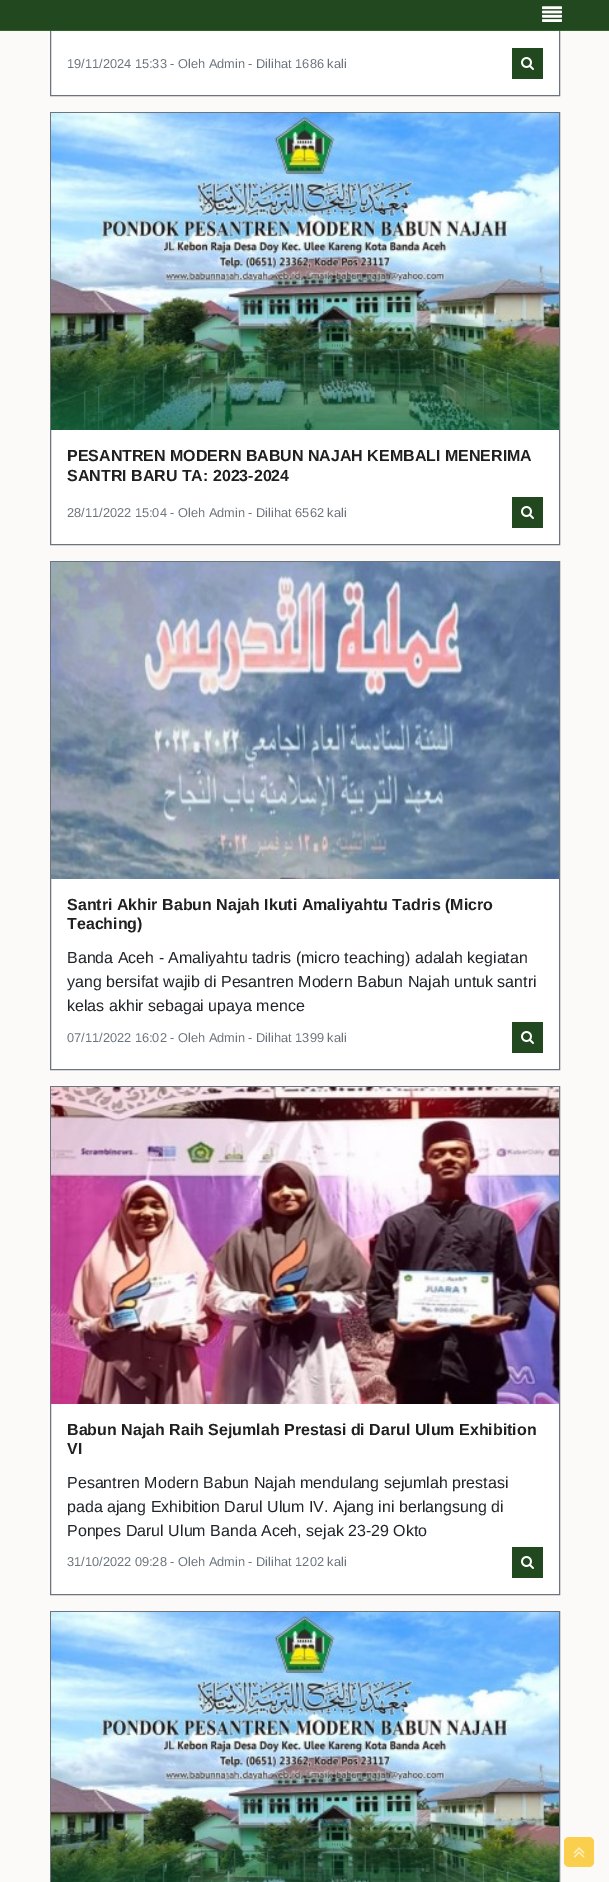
%!PS
<< /PageSize [609 1882] >> setpagedevice
/rgb { dup -16 bitshift 255 div exch dup -8 bitshift 255 and 255 div exch 255 and 255 div setrgbcolor } def
/font { [ exch dup neg 0 0 3 -1 roll 0 0 ] selectfont } def
/text { moveto show } def
/roundrect { 5 dict begin { /r /h /w /y /x } { exch def } forall
  x r add y moveto x w add y 2 copy h add r arct x w add y h add x 1 index r arct
  x y h add x y r arct x y 2 copy exch w add exch r arct closepath end } def
/picture { 5 dict begin { /h /w /y /x /name } { exch def } forall
  gsave x y translate w h scale
  w h 8 [w 0 0 h 0 0] name (r) file false 3 colorimage grestore end } def
0 1882 translate 1 -1 scale
4 setmiterlimit
/s1 { /LiberationSans-Regular 12.8 font 16#6C757D rgb } def
/s2 { /LiberationSans-Bold 16 font 16#202020 rgb } def
/s3 { /LiberationSans-Regular 16 font 16#212529 rgb } def
16#FBFAF8 rgb
0 0 609 1882 rectfill
16#FFFFFF rgb
51 31 508 64 rectfill
16#6C757D rgb
50.5 -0.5 509 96 rectstroke
16#224820 rgb
0 0 609 30 rectfill
16#32642D rgb
0 30 609 1 rectfill
(pic1.raw) 542 6 20 16 picture
s1
(19/11/2024 15:33 - Oleh Admin - Dilihat 1686 kali) 67 68 text
16#224820 rgb
512 48 31 31 rectfill
(pic2.raw) 521 57 13 13 picture
16#FFFFFF rgb
51 430 508 114 rectfill
16#6C757D rgb
50.5 112.5 509 432 rectstroke
(pic3.raw) 51 113 508 317 picture
s2
(PESANTREN MODERN BABUN NAJAH KEMBALI MENERIMA) 67 461 text
(SANTRI BARU TA: 2023-2024) 67 481 text
s1
(28/11/2022 15:04 - Oleh Admin - Dilihat 6562 kali) 67 517 text
16#224820 rgb
512 497 31 31 rectfill
(pic2.raw) 521 506 13 13 picture
16#FFFFFF rgb
51 879 508 190 rectfill
16#6C757D rgb
50.5 561.5 509 508 rectstroke
(pic4.raw) 51 562 508 317 picture
s2
(Santri Akhir Babun Najah Ikuti Amaliyahtu Tadris \(Micro) 67 910 text
(Teaching\)) 67 929 text
s3
(Banda Aceh - Amaliyahtu tadris \(micro teaching\) adalah kegiatan) 67 963 text
(yang bersifat wajib di Pesantren Modern Babun Najah untuk santri) 67 987 text
(kelas akhir sebagai upaya mence) 67 1011 text
s1
(07/11/2022 16:02 - Oleh Admin - Dilihat 1399 kali) 67 1042 text
16#224820 rgb
512 1022 31 31 rectfill
(pic2.raw) 521 1031 13 13 picture
16#FFFFFF rgb
51 1404 508 190 rectfill
16#6C757D rgb
50.5 1086.5 509 508 rectstroke
(pic5.raw) 51 1087 508 317 picture
s2
(Babun Najah Raih Sejumlah Prestasi di Darul Ulum Exhibition) 67 1435 text
(VI) 67 1454 text
s3
(Pesantren Modern Babun Najah mendulang sejumlah prestasi) 67 1488 text
(pada ajang Exhibition Darul Ulum IV. Ajang ini berlangsung di) 67 1512 text
(Ponpes Darul Ulum Banda Aceh, sejak 23-29 Okto) 67 1536 text
s1
(31/10/2022 09:28 - Oleh Admin - Dilihat 1202 kali) 67 1566 text
16#224820 rgb
512 1547 31 31 rectfill
(pic2.raw) 521 1556 13 13 picture
16#6C757D rgb
50.5 1611.5 509 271 rectstroke
(pic6.raw) 51 1612 508 270 picture
16#FBCF4E rgb
564 1837 30 30 5 roundrect fill
(pic7.raw) 573 1847 12 11 picture
showpage
